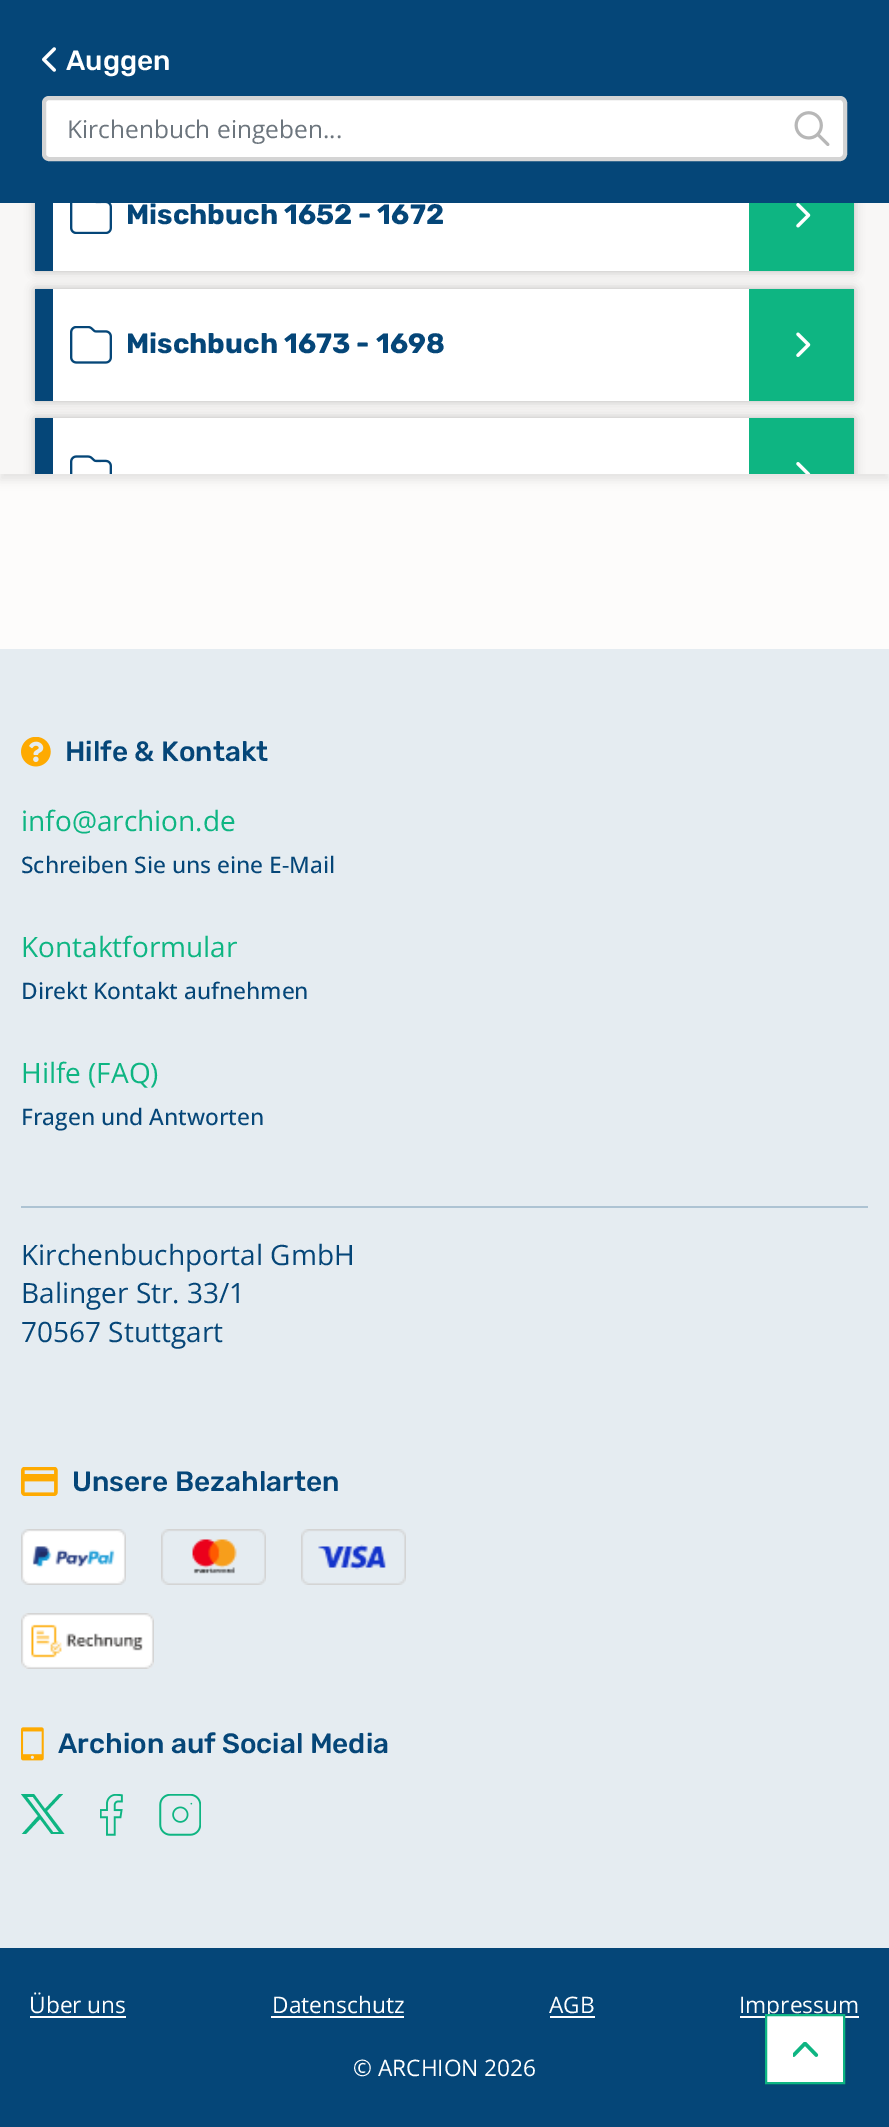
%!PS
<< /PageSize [889 2127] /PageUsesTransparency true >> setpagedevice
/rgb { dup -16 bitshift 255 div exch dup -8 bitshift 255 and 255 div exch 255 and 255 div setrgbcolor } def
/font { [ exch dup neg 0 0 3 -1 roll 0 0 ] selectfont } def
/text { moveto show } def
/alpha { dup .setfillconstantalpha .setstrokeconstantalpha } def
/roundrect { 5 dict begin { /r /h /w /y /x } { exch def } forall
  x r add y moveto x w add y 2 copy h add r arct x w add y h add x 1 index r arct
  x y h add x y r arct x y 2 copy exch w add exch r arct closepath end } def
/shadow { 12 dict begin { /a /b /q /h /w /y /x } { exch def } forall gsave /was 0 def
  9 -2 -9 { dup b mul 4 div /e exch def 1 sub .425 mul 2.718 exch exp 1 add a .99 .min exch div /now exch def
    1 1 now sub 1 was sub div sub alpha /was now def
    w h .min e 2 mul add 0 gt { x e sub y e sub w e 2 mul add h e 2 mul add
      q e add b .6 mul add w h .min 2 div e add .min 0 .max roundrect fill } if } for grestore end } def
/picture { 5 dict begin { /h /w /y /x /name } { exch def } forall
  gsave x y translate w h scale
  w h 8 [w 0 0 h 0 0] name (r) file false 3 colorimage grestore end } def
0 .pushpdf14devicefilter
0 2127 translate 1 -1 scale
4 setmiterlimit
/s1 { /Rubik-Light 28 font 16#FFFFFF rgb } def
/s2 { /OpenSans-Regular 24.5 font 16#6C757D rgb } def
/s3 { /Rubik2-Light 28 font 16#054678 rgb } def
/s4 { /Rubik-Light 28 font 16#054678 rgb } def
/s5 { /OpenSans-Regular 28 font 16#0EB582 rgb } def
/s6 { /OpenSans-Medium 22.75 font 16#054678 rgb } def
/s7 { /OpenSans-Regular 28 font 16#054678 rgb } def
/s8 { /OpenSans-Regular 22.75 font 16#FFFFFF rgb } def
16#FDFCFB rgb
0 0 889 2127 rectfill
16#000000 rgb
0 -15 889 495 0 5 0.1 shadow
16#F8F7F6 rgb
0 203 889 271 rectfill
16#333130 rgb
35 159 819 112 0 5 0.3 shadow
16#054678 rgb
0 0 889 203 rectfill
(pic1.raw) 42 47 14 25 picture
s1
(Auggen) 66 70 text
44 98 801 61 5 roundrect gsave fill grestore
16#D4D4D4 rgb
4 setlinewidth
stroke
s2
(Kirchenbuch eingeben...) 67 138 text
(pic2.raw) 794 111 36 35 picture
16#FFFFFF rgb
53 203 696 68 rectfill
16#054678 rgb
35 203 18 68 rectfill
(pic3.raw) 70 203 42 31 picture
s3
(Mischbuch 1652 - 1672) 126 224 text
16#0EB582 rgb
749 203 105 68 rectfill
(pic4.raw) 796 203 15 25 picture
16#333130 rgb
35 289 819 112 0 5 0.3 shadow
16#FFFFFF rgb
53 289 696 112 rectfill
16#054678 rgb
35 289 18 112 rectfill
(pic5.raw) 70 326 42 38 picture
(Mischbuch 1673 - 1698) 126 353 text
16#0EB582 rgb
749 289 105 112 rectfill
(pic6.raw) 796 332 15 25 picture
gsave
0 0 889 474 rectclip
16#333130 rgb
35 418 819 112 0 5 0.3 shadow
grestore
16#FFFFFF rgb
53 418 696 56 rectfill
16#054678 rgb
35 418 18 56 rectfill
(pic7.raw) 70 455 42 19 picture
16#0EB582 rgb
749 418 105 56 rectfill
(pic8.raw) 796 462 15 12 picture
16#E5ECF1 rgb
0 649 889 1299 rectfill
(pic9.raw) 21 737 30 30 picture
s4
(Hilfe & Kontakt) 65 761 text
s5
(info@archion.de) 21 831 text
s6
(Schreiben Sie uns eine E-Mail) 21 873 text
s5
(Kontaktformular) 21 957 text
s6
(Direkt Kontakt aufnehmen) 21 999 text
s5
(Hilfe \(FAQ\)) 21 1083 text
s6
(Fragen und Antworten) 21 1125 text
16#ADC3D3 rgb
21 1206 847 2 rectfill
s7
(Kirchenbuchportal GmbH) 21 1265 text
(Balinger Str. 33/1) 21 1303 text
(70567 Stuttgart) 21 1342 text
(pic10.raw) 21 1467 37 29 picture
s4
(Unsere Bezahlarten) 72 1491 text
(pic11.raw) 21 1529 105 56 picture
(pic12.raw) 161 1529 105 56 picture
(pic13.raw) 301 1529 105 56 picture
(pic14.raw) 21 1613 133 56 picture
(pic15.raw) 21 1727 23 34 picture
(Archion auf Social Media) 58 1753 text
gsave
21 1794 44 40 rectclip
16#0EB582 rgb
27 1797 moveto 33 1797 lineto 59 1832 lineto 53 1832 lineto closepath 59 1794 moveto 45 1809 lineto 34 1794 lineto 21 1794 lineto 38 1816 lineto 21 1835 lineto 25 1835 lineto 40 1819 lineto 52 1835 lineto 65 1835 lineto 47 1811 lineto 63 1794 lineto closepath fill
grestore
(pic16.raw) 100 1794 23 42 picture
(pic17.raw) 159 1794 42 42 picture
0 1948 889 179 rectfill
s8
(Über uns) 29 2013 text
30 2016 96 2 rectfill
(Datenschutz) 272 2013 text
271 2016 133 2 rectfill
(AGB) 549 2013 text
550 2016 45 2 rectfill
740 2016 119 2 rectfill
(Impressum) 739 2013 text
(© ARCHION 2026) 353 2076 text
16#333130 rgb
765 2014 80 70 0 5 0.1 shadow
16#FFFFFF rgb
766 2015 moveto 844 2015 lineto 844 2083 lineto 766 2083 lineto closepath gsave fill grestore
16#0EB582 rgb
2 setlinewidth
stroke
(pic18.raw) 793 2042 26 15 picture
.poppdf14devicefilter showpage
